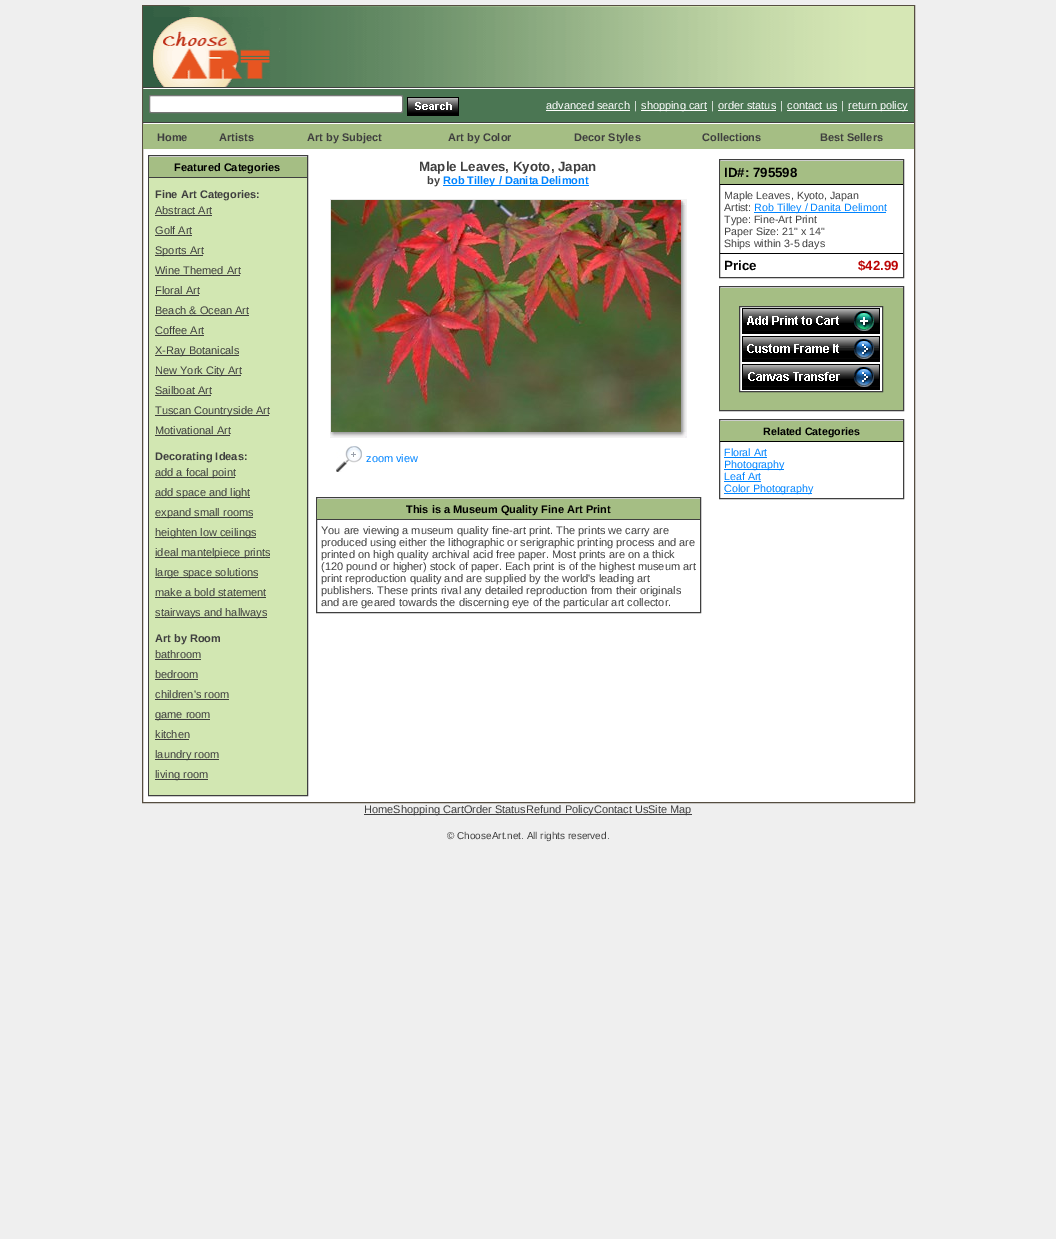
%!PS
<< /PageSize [1056 1239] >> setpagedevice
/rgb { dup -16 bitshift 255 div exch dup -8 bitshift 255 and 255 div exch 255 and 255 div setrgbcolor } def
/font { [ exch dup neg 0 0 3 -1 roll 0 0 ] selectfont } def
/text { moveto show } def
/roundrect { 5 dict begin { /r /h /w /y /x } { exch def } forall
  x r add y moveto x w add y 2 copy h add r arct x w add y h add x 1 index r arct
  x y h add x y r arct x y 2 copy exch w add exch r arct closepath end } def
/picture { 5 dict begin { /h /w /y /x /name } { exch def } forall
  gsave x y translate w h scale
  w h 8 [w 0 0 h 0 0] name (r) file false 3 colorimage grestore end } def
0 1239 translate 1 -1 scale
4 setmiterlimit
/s1 { /LiberationSans-Regular 11 font 16#FFFFFF rgb } def
/s2 { /LiberationSans-Bold 11 font 16#3F3F3F rgb } def
/s3 { /LiberationSans-Bold 11 font 16#000000 rgb } def
/s4 { /LiberationSans-Regular 11 font 16#3F3F3F rgb } def
/s5 { /LiberationSans-Bold 13.3 font 16#3F3F3F rgb } def
/s6 { /LiberationSans-Bold 11 font 16#0084FF rgb } def
/s7 { /LiberationSans-Regular 11 font 16#0084FF rgb } def
/s8 { /LiberationSans-Bold 13.3 font 16#000000 rgb } def
/s9 { /LiberationSans-Regular 10.7 font 16#3F3F3F rgb } def
/s10 { /LiberationSans-Regular 10.7 font 16#0084FF rgb } def
/s11 { /LiberationSans-Bold 13.3 font 16#BC0404 rgb } def
/s12 { /LiberationSans-Bold 10.7 font 16#000000 rgb } def
/s13 { /LiberationSans-Regular 10 font 16#3F3F3F rgb } def
16#EFEFEF rgb
0 0 1056 1239 rectfill
16#FFFFFF rgb
143 88 771 714 rectfill
16#564E41 rgb
142.5 5.5 772 797 rectstroke
(pic1.raw) 143 6 771 81 picture
16#3F3F3F rgb
143 87 771 1 rectfill
16#4B7653 rgb
143 89 771 33 rectfill
16#3F3F3F rgb
143 122 771 1 rectfill
16#FFFFFF rgb
149.5 95.5 253 17 1.5 roundrect gsave fill grestore
16#767676 rgb
stroke
(pic2.raw) 407 97 52 19 picture
s1
(advanced search) 546 109 text
546 110 84 1 rectfill
(|) 634 109 text
641 110 66 1 rectfill
(shopping cart) 641 109 text
(|) 711 109 text
(order status) 718 109 text
718 110 58 1 rectfill
(|) 780 109 text
(contact us) 787 109 text
787 110 50 1 rectfill
(|) 841 109 text
848 110 60 1 rectfill
(return policy) 848 109 text
16#A5BE84 rgb
143 124 771 25 rectfill
s2
(Home) 157 141 text
(Artists) 219 141 text
(Art by Subject) 307 141 text
(Art by Color) 448 141 text
(Decor Styles) 574 141 text
(Collections) 702 141 text
(Best Sellers) 820 141 text
148.5 155.5 159 640 rectstroke
16#A5BE84 rgb
149 157 158 20 rectfill
s3
(Featured Categories) 174 171 text
16#D2E7B2 rgb
149 178 158 617 rectfill
16#3F3F3F rgb
149 177 158 1 rectfill
(Fine Art Categories:) 155 198 text
s4
(Abstract Art) 155 214 text
155 215 57 1 rectfill
(Golf Art) 155 234 text
155 235 37 1 rectfill
155 255 48 1 rectfill
(Sports Art) 155 254 text
(Wine Themed Art) 155 274 text
155 275 85 1 rectfill
(Floral Art) 155 294 text
155 295 44 1 rectfill
(Beach & Ocean Art) 155 314 text
155 315 94 1 rectfill
(Coffee Art) 155 334 text
155 335 49 1 rectfill
155 355 84 1 rectfill
(X-Ray Botanicals) 155 354 text
155 375 86 1 rectfill
(New York City Art) 155 374 text
(Sailboat Art) 155 394 text
155 395 56 1 rectfill
155 415 114 1 rectfill
(Tuscan Countryside Art) 155 414 text
(Motivational Art) 155 434 text
155 435 75 1 rectfill
s2
(Decorating Ideas:) 155 460 text
155 477 80 1 rectfill
s4
(add a focal point) 155 476 text
155 497 95 1 rectfill
(add space and light) 155 496 text
155 517 98 1 rectfill
(expand small rooms) 155 516 text
155 537 101 1 rectfill
(heighten low ceilings) 155 536 text
155 557 115 1 rectfill
(ideal mantelpiece prints) 155 556 text
155 577 103 1 rectfill
(large space solutions) 155 576 text
(make a bold statement) 155 596 text
155 597 111 1 rectfill
155 617 112 1 rectfill
(stairways and hallways) 155 616 text
s2
(Art by Room) 155 642 text
s4
(bathroom) 155 658 text
155 659 46 1 rectfill
(bedroom) 155 678 text
155 679 43 1 rectfill
(children's room) 155 698 text
155 699 74 1 rectfill
155 719 55 1 rectfill
(game room) 155 718 text
(kitchen) 155 738 text
155 739 34 1 rectfill
155 759 64 1 rectfill
(laundry room) 155 758 text
155 779 53 1 rectfill
(living room) 155 778 text
s5
(Maple Leaves, Kyoto, Japan) 419 171 text
s2
(by) 427 184 text
16#0084FF rgb
443 185 146 1 rectfill
(Rob Tilley / Danita Delimont) 443 184 text
16#E7E7E7 rgb
330 199 351 1 rectfill
330 199 1 233 rectfill
(pic3.raw) 331 200 350 232 picture
(pic4.raw) 681 199 6 233 picture
(pic5.raw) 681 199 5 6 picture
(pic6.raw) 330 432 351 6 picture
(pic7.raw) 330 432 4 5 picture
(pic8.raw) 681 432 6 6 picture
(pic9.raw) 336 446 26 26 picture
s7
(zoom view) 366 462 text
16#3F3F3F rgb
316.5 497.5 384 115 rectstroke
16#A5BE84 rgb
317 499 383 20 rectfill
s3
(This is a Museum Quality Fine Art Print) 406 513 text
16#3F3F3F rgb
317 519 383 1 rectfill
s4
(You are viewing a museum quality fine-art print. The prints we carry are) 321 534 text
(produced using either the lithographic or serigraphic printing process and are) 321 546 text
(printed on high quality archival acid free paper. Most prints are on a thick) 321 558 text
(\(120 pound or higher\) stock of paper. Each print is of the highest museum art) 321 570 text
(print reproduction quality and are supplied by the world's leading art) 321 582 text
(publishers. These prints rival any detailed reproduction from their originals) 321 594 text
(and are geared towards the discerning eye of the particular art collector.) 321 606 text
719.5 159.5 184 118 rectstroke
16#A5BE84 rgb
720 161 183 23 rectfill
s8
(ID#: 795598) 724 177 text
720 184 183 1 rectfill
s9
(Maple Leaves, Kyoto, Japan) 724 199 text
(Artist:) 724 211 text
16#0084FF rgb
754 212 132 1 rectfill
(Rob Tilley / Danita Delimont) 754 211 text
s9
(Type: Fine-Art Print) 724 223 text
(Paper Size: 21" x 14") 724 235 text
(Ships within 3-5 days) 724 247 text
16#000000 rgb
720 253 183 1 rectfill
s8
(Price) 724 270 text
s11
($42.99) 858 270 text
16#3F3F3F rgb
719.5 286.5 184 124 rectstroke
16#A5BE84 rgb
720 288 183 122 rectfill
16#FFFFFF rgb
739.5 306.5 moveto 882.5 306.5 lineto 882.5 391.5 lineto 739.5 391.5 lineto closepath gsave fill grestore
16#3F3F3F rgb
stroke
(pic10.raw) 742 308 138 26 picture
(pic11.raw) 742 336 138 26 picture
(pic12.raw) 742 364 138 26 picture
719.5 419.5 184 79 rectstroke
16#A5BE84 rgb
720 421 183 20 rectfill
s12
(Related Categories) 763 435 text
720 441 183 1 rectfill
s10
(Floral Art) 724 456 text
724 457 43 1 rectfill
724 469 60 1 rectfill
(Photography) 724 468 text
(Leaf Art) 724 480 text
724 481 37 1 rectfill
724 493 88 1 rectfill
(Color Photography) 724 492 text
16#3F3F3F rgb
364 814 284 1 rectfill
s4
(HomeShopping CartOrder StatusRefund PolicyContact Us) 364 813 text
648 814 44 1 rectfill
(Site Map) 648 813 text
s13
(© ChooseArt.net. All rights reserved.) 447 839 text
showpage
